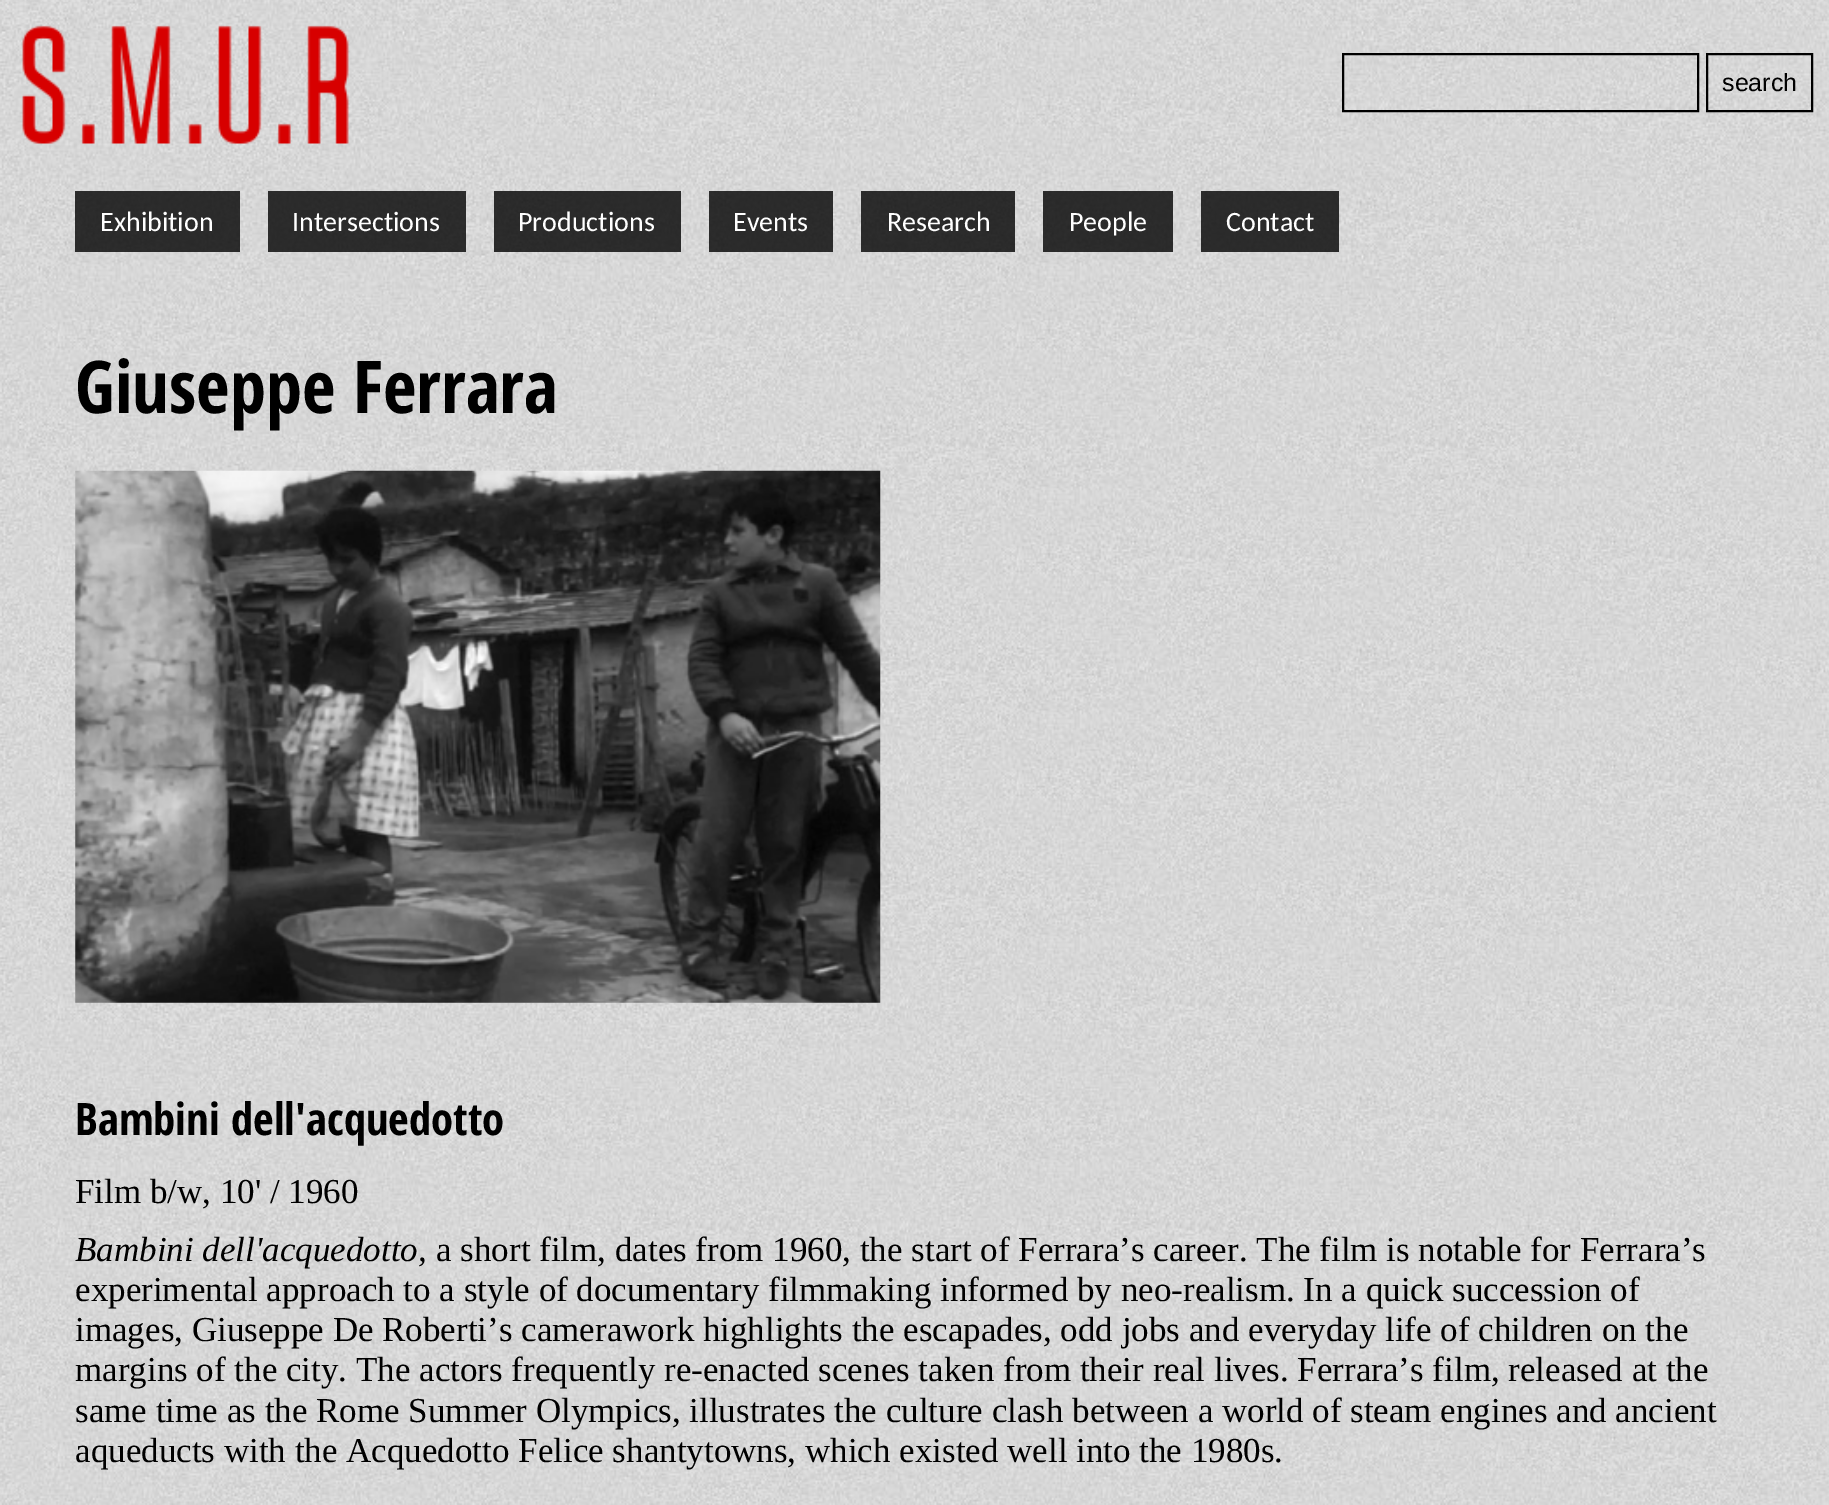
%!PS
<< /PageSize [1829 1505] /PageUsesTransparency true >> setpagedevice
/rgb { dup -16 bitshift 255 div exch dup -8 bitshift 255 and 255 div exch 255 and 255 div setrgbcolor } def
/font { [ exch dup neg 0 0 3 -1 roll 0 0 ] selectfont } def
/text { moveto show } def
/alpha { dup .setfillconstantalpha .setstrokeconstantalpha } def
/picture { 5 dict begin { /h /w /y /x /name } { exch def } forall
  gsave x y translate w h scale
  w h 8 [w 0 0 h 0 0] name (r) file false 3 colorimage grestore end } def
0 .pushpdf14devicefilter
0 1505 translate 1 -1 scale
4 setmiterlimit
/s1 { /LiberationSans-Regular 25 font 16#000000 rgb } def
/s2 { /Carlito-Regular 28 font 16#FFFFFF rgb } def
/s3 { /OpenSansCondensed-Bold 72.75 font 16#000000 rgb } def
/s4 { /OpenSansCondensed-Bold 44.75 font 16#000000 rgb } def
/s5 { /LiberationSerif-Regular 35 font 16#000000 rgb } def
/s6 { /LiberationSerif-Italic 35 font 16#000000 rgb } def
16#FFFFFF rgb
0 0 1829 1505 rectfill
(pic1.raw) 0 0 1829 1505 picture
(pic2.raw) 22 25 327 119 picture
16#000000 rgb
2 setlinewidth
1343 54 355 57 rectstroke
1707 54 105 57 rectstroke
s1
(search) 1722 91 text
0.8 alpha
75 191 165 61 rectfill
1 alpha
s2
(Exhibition) 100 231 text
0.8 alpha
16#000000 rgb
268 191 198 61 rectfill
1 alpha
s2
(Intersections) 292 231 text
0.8 alpha
16#000000 rgb
494 191 187 61 rectfill
1 alpha
s2
(Productions) 518 231 text
0.8 alpha
16#000000 rgb
709 191 124 61 rectfill
1 alpha
s2
(Events) 733 231 text
0.8 alpha
16#000000 rgb
861 191 154 61 rectfill
1 alpha
s2
(Research) 887 231 text
0.8 alpha
16#000000 rgb
1043 191 130 61 rectfill
1 alpha
s2
(People) 1069 231 text
0.8 alpha
16#000000 rgb
1201 191 138 61 rectfill
1 alpha
s2
(Contact) 1226 231 text
s3
(Giuseppe Ferrara) 75 413 text
(pic3.raw) 75 470 806 533 picture
s4
(Bambini dell'acquedotto) 75 1135 text
s5
(Film b/w, 10' / 1960) 75 1203 text
s6
(Bambini dell'acquedotto,) 75 1261 text
s5
(a short film, dates from 1960, the start of Ferrara’s career. The film is notable for Ferrara’s) 436 1261 text
(experimental approach to a style of documentary filmmaking informed by neo-realism. In a quick succession of) 75 1301 text
(images, Giuseppe De Roberti’s camerawork highlights the escapades, odd jobs and everyday life of children on the) 75 1341 text
(margins of the city. The actors frequently re-enacted scenes taken from their real lives. Ferrara’s film, released at the) 75 1381 text
(same time as the Rome Summer Olympics, illustrates the culture clash between a world of steam engines and ancient) 75 1422 text
(aqueducts with the Acquedotto Felice shantytowns, which existed well into the 1980s.) 75 1462 text
.poppdf14devicefilter showpage
